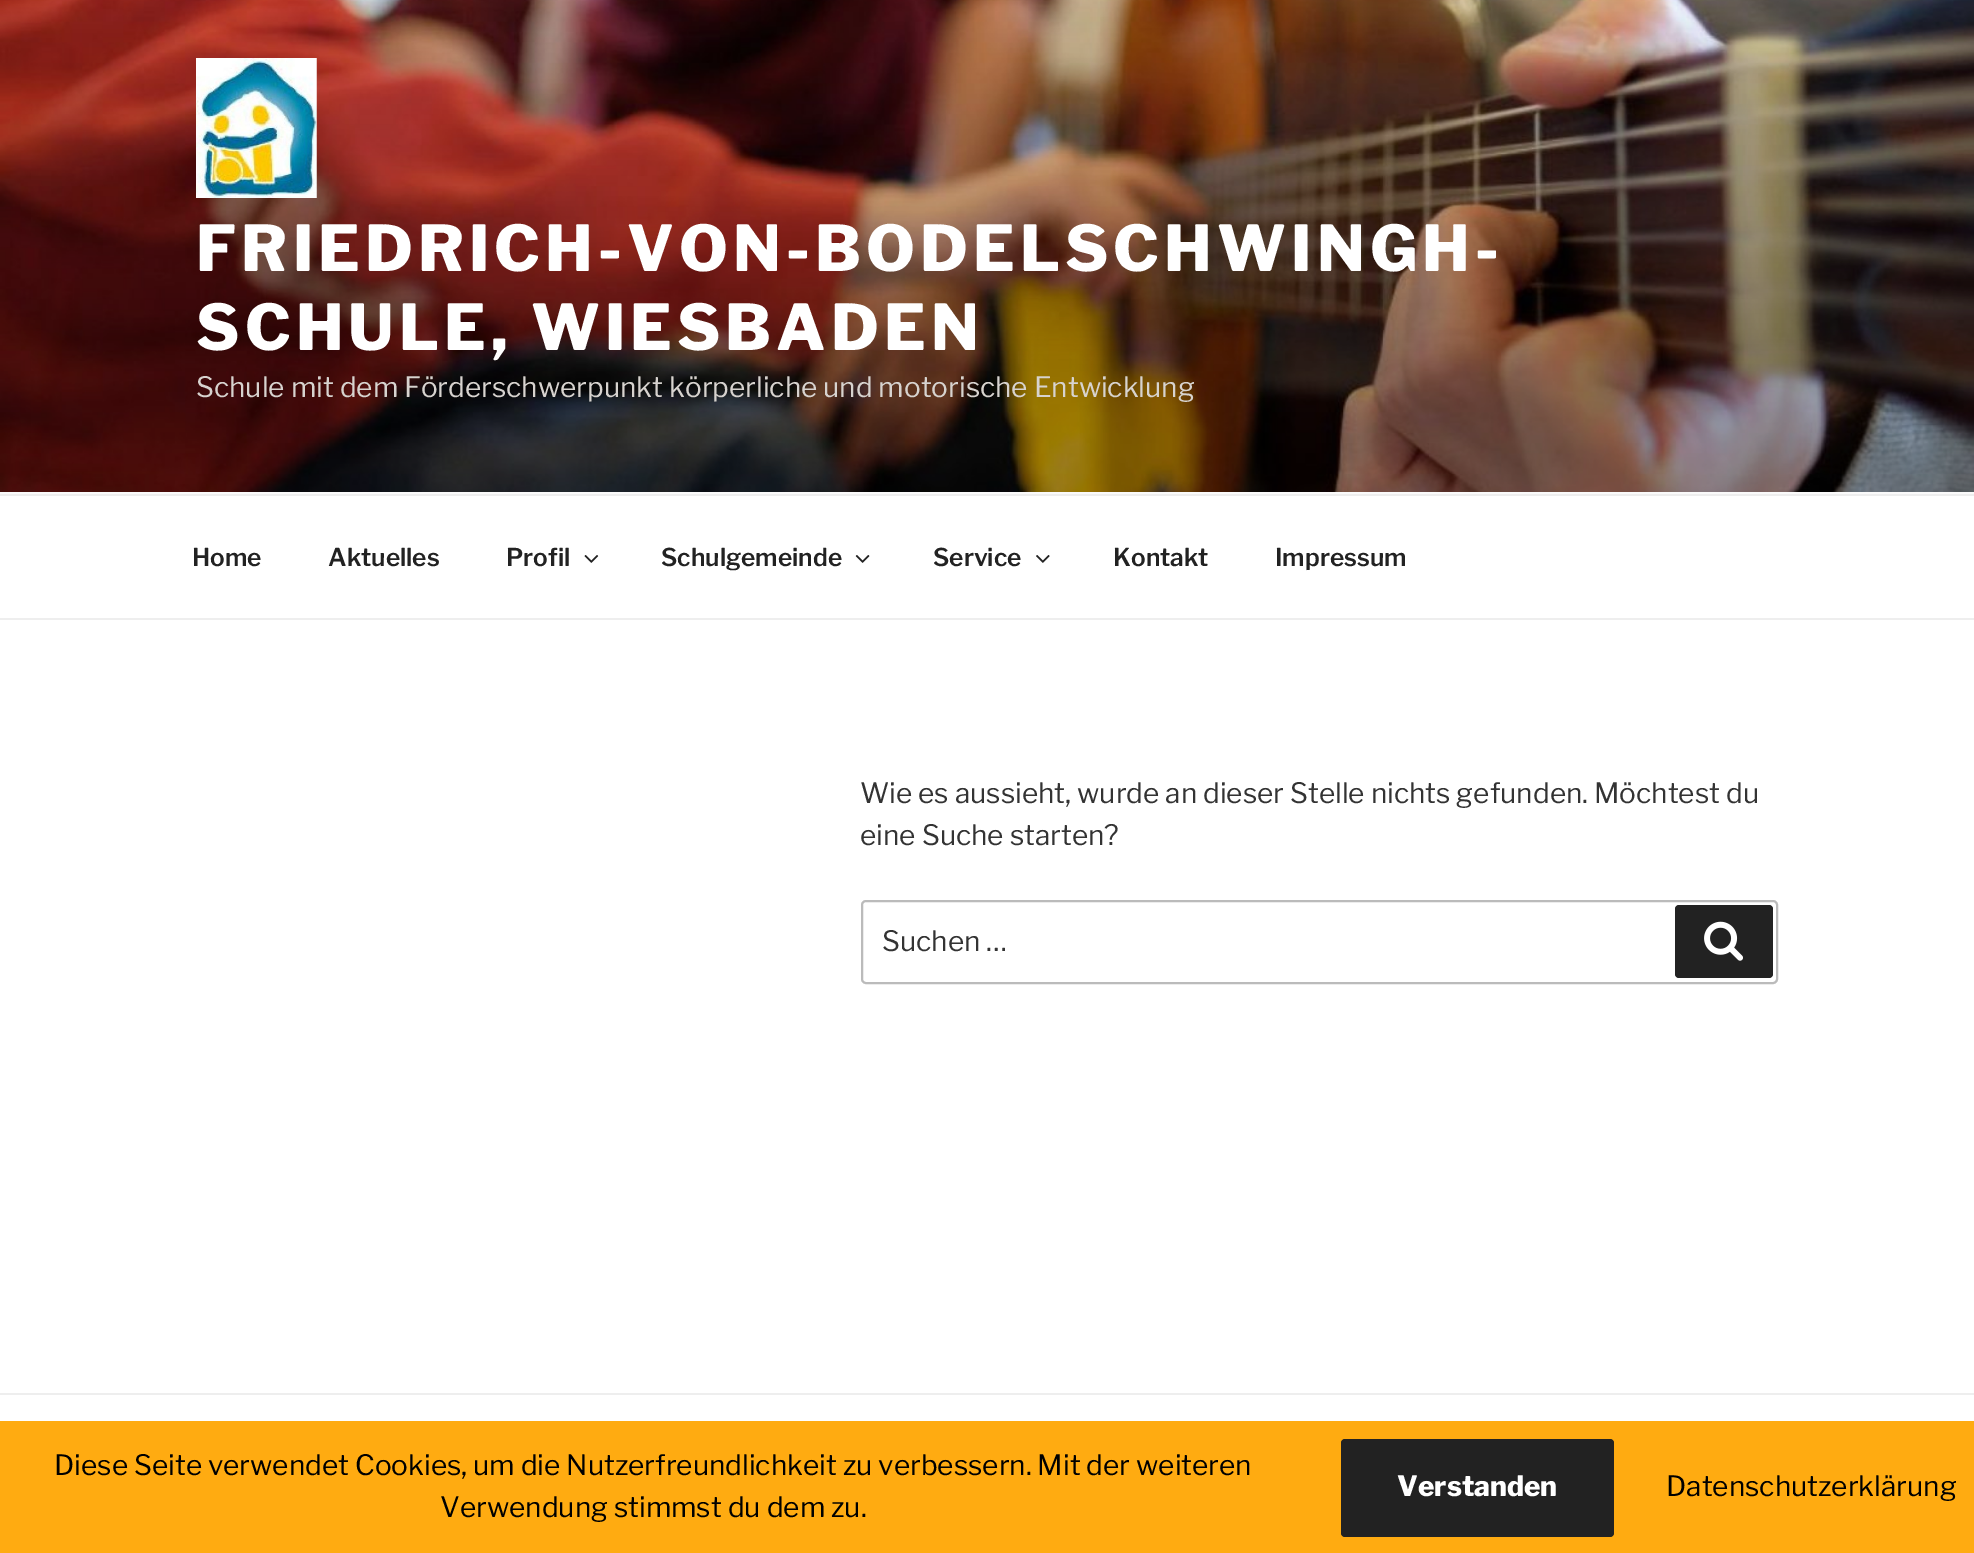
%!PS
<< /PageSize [1974 1553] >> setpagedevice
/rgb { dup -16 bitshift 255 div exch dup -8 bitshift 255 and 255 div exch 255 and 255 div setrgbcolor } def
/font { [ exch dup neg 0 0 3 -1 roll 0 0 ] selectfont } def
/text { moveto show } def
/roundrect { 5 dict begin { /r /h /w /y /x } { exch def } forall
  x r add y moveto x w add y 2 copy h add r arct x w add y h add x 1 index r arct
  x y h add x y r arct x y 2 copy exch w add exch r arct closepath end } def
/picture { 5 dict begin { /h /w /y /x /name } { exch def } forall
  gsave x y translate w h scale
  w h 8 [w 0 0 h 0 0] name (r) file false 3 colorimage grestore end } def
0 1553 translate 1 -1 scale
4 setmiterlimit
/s1 { /LibreFranklin-Thin 28 font 16#D7D3CF rgb } def
/s2 { /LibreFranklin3-Thin 24.5 font 16#222222 rgb } def
/s3 { /LibreFranklin-Thin 28 font 16#333333 rgb } def
/s4 { /LibreFranklin-Thin 28 font 16#000000 rgb } def
/s5 { /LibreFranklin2-Thin 28 font 16#FFFFFF rgb } def
16#FFFFFF rgb
0 0 1974 1553 rectfill
16#FAFAFA rgb
0 492 1974 2 rectfill
(pic1.raw) 0 0 1974 492 picture
(pic2.raw) 196 58 121 140 picture
/LibreFranklin2-Thin 63 font
16#FFFFFF rgb
196 271 moveto 5.05 0 (FRIEDRICH-VON-BODELSCHWINGH-) ashow
196 350 moveto 5.05 0 (SCHULE, WIESBADEN) ashow
s1
(Schule mit dem Förderschwerpunkt körperliche und motorische Entwicklung) 196 397 text
16#EEEEEE rgb
0 494 1974 2 rectfill
0 618 1974 2 rectfill
s2
(Home) 192 566 text
(Aktuelles) 328 566 text
(Profil) 506 566 text
(pic3.raw) 584 555 15 8 picture
(Schulgemeinde) 661 566 text
(pic4.raw) 855 555 15 8 picture
(Service) 933 566 text
(pic5.raw) 1036 555 14 8 picture
(Kontakt) 1113 566 text
(Impressum) 1275 566 text
s3
(Wie es aussieht, wurde an dieser Stelle nichts gefunden. Möchtest du) 860 803 text
(eine Suche starten?) 860 845 text
16#BBBBBB rgb
2 setlinewidth
862 901 915 82 4 roundrect stroke
s3
(Suchen …) 882 951 text
16#222222 rgb
1675 905 98 73 4 roundrect fill
(pic6.raw) 1704 921 39 40 picture
16#EEEEEE rgb
0 1393 1974 2 rectfill
16#FFAB11 rgb
0 1421 1974 132 rectfill
s4
(Diese Seite verwendet Cookies, um die Nutzerfreundlichkeit zu verbessern. Mit der weiteren) 54 1475 text
(Verwendung stimmst du dem zu.) 440 1517 text
16#222222 rgb
1341 1439 273 98 4 roundrect fill
s5
(Verstanden) 1397 1496 text
s4
(Datenschutzerklärung) 1666 1496 text
showpage
